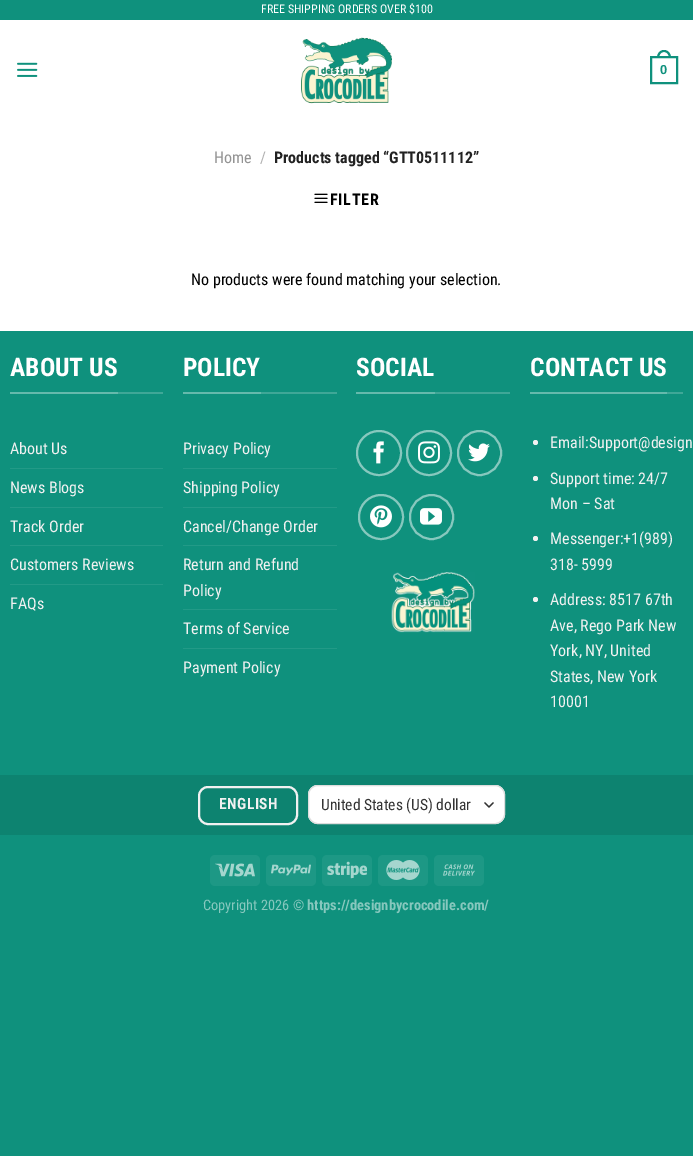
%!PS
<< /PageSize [693 1156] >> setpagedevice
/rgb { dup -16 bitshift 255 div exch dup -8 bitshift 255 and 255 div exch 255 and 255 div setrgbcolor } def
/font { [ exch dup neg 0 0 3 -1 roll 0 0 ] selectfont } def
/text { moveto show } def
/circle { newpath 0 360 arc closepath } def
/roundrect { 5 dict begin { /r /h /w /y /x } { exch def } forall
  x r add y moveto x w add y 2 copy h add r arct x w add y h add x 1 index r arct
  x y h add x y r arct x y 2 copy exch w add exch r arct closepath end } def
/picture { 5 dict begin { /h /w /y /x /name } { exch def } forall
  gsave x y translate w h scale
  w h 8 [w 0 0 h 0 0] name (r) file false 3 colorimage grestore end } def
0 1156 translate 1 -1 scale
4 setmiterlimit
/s1 { /RobotoCondensed-Regular 12 font 16#FFFFFF rgb } def
/s2 { /LiberationSans-Bold 13 font 16#0F917D rgb } def
/s3 { /RobotoCondensed-Regular 16 font 16#949494 rgb } def
/s4 { /RobotoCondensed-Regular 16 font 16#B2B2B2 rgb } def
/s5 { /RobotoCondensed-Bold 16 font 16#222222 rgb } def
/s6 { /RobotoCondensed-Regular 16 font 16#000000 rgb } def
/s7 { /RobotoCondensed-Bold 25.5 font 16#FFFFFF rgb } def
/s8 { /RobotoCondensed-Regular 16 font 16#F1F1F1 rgb } def
/s9 { /RobotoCondensed-Regular 15.5 font 16#333333 rgb } def
/s10 { /RobotoCondensed-Regular 14.4 font 16#87C8BE rgb } def
/s11 { /RobotoCondensed-Bold 14.4 font 16#87C8BE rgb } def
16#0F917D rgb
0 0 693 1156 rectfill
16#FFFFFF rgb
0 20 693 311 rectfill
s1
(FREE SHIPPING ORDERS OVER $100) 261 13 text
(pic1.raw) 17 62 21 15 picture
(pic2.raw) 301 37 91 67 picture
16#0F917D rgb
2 setlinewidth
651 57 26 26 rectstroke
664 50 moveto 668.5 50 671 54 671 58 curveto 657 58 lineto 657 54 659.5 50 664 50 curveto closepath 664 52 moveto 667.5 52 669 55 669 58 curveto 659 58 lineto 659 55 660.5 52 664 52 curveto closepath eofill
s2
(0) 660 74 text
s3
(Home) 214 163 text
s4
(/) 260 163 text
s5
(Products tagged “GTT0511112”) 274 163 text
(pic3.raw) 314 193 14 10 picture
16#000000 rgb
330 205 moveto 0.75 0 (FILTER) ashow
s6
(No products were found matching your selection.) 191 285 text
16#3FA797 rgb
118 392 45 2 rectfill
16#65B9AC rgb
10 392 108 2 rectfill
s7
(ABOUT US) 10 376 text
s8
(About Us) 10 454 text
16#229A87 rgb
10 468 153 1 rectfill
s8
(News Blogs) 10 493 text
16#229A87 rgb
10 507 153 1 rectfill
s8
(Track Order) 10 532 text
16#229A87 rgb
10 545 153 1 rectfill
s8
(Customers Reviews) 10 570 text
16#229A87 rgb
10 584 153 1 rectfill
s8
(FAQs) 10 609 text
16#3FA797 rgb
261 392 76 2 rectfill
16#65B9AC rgb
183 392 78 2 rectfill
s7
(POLICY) 183 376 text
s8
(Privacy Policy) 183 454 text
16#229A87 rgb
183 468 154 1 rectfill
s8
(Shipping Policy) 183 493 text
16#229A87 rgb
183 507 154 1 rectfill
s8
(Cancel/Change Order) 183 532 text
16#229A87 rgb
183 545 154 1 rectfill
s8
(Return and Refund) 183 570 text
(Policy) 183 596 text
16#229A87 rgb
183 609 154 1 rectfill
s8
(Terms of Service) 183 634 text
16#229A87 rgb
183 648 154 1 rectfill
s8
(Payment Policy) 183 673 text
16#3FA797 rgb
435 392 75 2 rectfill
16#65B9AC rgb
356 392 79 2 rectfill
s7
(SOCIAL) 356 376 text
16#87C8BE rgb
379 453 22 circle stroke
(pic4.raw) 373 441 11 23 picture
429 453 22 circle stroke
(pic5.raw) 418 441 22 23 picture
458 431 43 44 21.5 roundrect stroke
(pic6.raw) 468 443 22 19 picture
381 517 22 circle stroke
(pic7.raw) 370 505 22 23 picture
410 495 43 44 21.5 roundrect stroke
(pic8.raw) 420 508 22 17 picture
(pic9.raw) 391 572 84 61 picture
16#3FA797 rgb
667 392 16 2 rectfill
16#65B9AC rgb
530 392 137 2 rectfill
s7
(CONTACT US) 530 376 text
16#F1F1F1 rgb
535.5 442.5 2.5 circle fill
s8
(Email:Support@design) 550 448 text
535.5 478.5 2.5 circle fill
(Support time: 24/7) 550 484 text
(Mon – Sat) 550 509 text
535.5 538.5 2.5 circle fill
(Messenger:+1\(989\)) 550 544 text
(318- 5999) 550 570 text
535.5 599.5 2.5 circle fill
(Address: 8517 67th) 550 605 text
(Ave, Rego Park New) 550 631 text
(York, NY, United) 550 656 text
(States, New York) 550 682 text
(10001) 550 707 text
16#0D8370 rgb
0 775 693 60 rectfill
16#F1F1F1 rgb
199 787 98 37 9 roundrect stroke
/RobotoCondensed-Bold 15.5 font
219 809 moveto 0.5 0 (ENGLISH) ashow
16#FFFFFF rgb
308 785 197 39 10 roundrect fill
16#333333 rgb
1.3 setlinewidth
1 setlinecap
1 setlinejoin
485 803 moveto 489 807 lineto 493 803 lineto stroke
16#DDDDDD rgb
1 setlinewidth
0 setlinecap
0 setlinejoin
308.5 785.5 196 38 9.5 roundrect stroke
s9
(United States \(US\) dollar) 321 810 text
16#1D9885 rgb
210 855 50 31 5 roundrect fill
(pic10.raw) 215 863 40 14 picture
266 855 50 31 5 roundrect fill
(pic11.raw) 271 864 40 12 picture
322 855 50 31 5 roundrect fill
(pic12.raw) 327 861 40 18 picture
378 855 50 31 5 roundrect fill
(pic13.raw) 386 860 34 20 picture
434 855 50 31 5 roundrect fill
(pic14.raw) 443 864 32 12 picture
s10
(Copyright 2026 ©) 203 910 text
s11
(https://designbycrocodile.com/) 307 910 text
showpage
